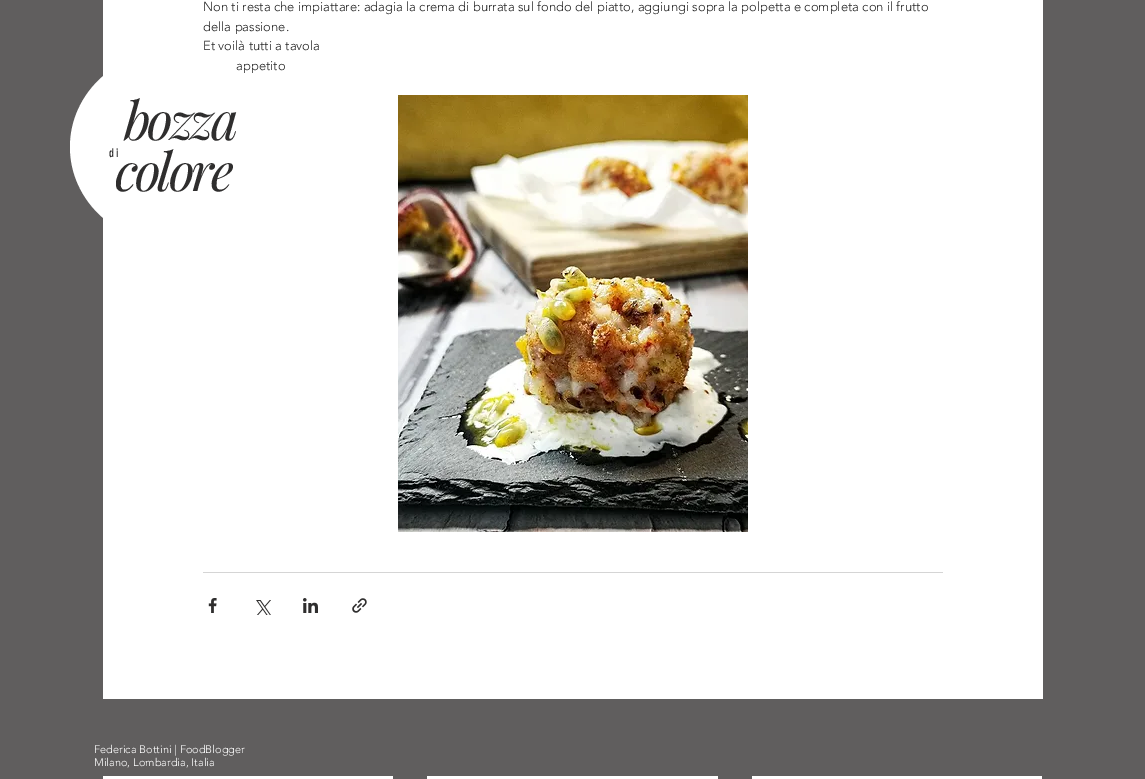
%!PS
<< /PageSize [1145 779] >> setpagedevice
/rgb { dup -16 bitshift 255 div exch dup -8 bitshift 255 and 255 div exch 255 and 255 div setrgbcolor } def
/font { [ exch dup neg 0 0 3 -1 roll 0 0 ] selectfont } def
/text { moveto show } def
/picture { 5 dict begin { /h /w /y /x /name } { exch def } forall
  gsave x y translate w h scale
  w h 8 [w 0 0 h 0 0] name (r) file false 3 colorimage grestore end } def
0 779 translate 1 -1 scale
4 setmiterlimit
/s1 { /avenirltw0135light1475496-Light 13 font 16#262626 rgb } def
/s2 { /avenirltw0135light1475496-Light 11 font 16#FFFFFF rgb } def
16#605E5E rgb
0 0 1145 779 rectfill
16#FFFFFF rgb
103 0 940 699 rectfill
s1
(Non ti resta che impiattare: adagia la crema di burrata sul fondo del piatto, aggiungi sopra la polpetta e completa con il frutto) 203 11 text
(della passione.) 203 31 text
(Et voilà tutti a tavola) 203 50 text
(appetito) 236 70 text
(pic1.raw) 398 95 350 437 picture
16#D5D5D5 rgb
203 572 740 1 rectfill
(pic2.raw) 208 598 9 15 picture
(pic3.raw) 256 600 15 15 picture
(pic4.raw) 303 598 15 15 picture
(pic5.raw) 352 598 15 15 picture
16#FFFFFF rgb
103 776 290 3 rectfill
427 776 291 3 rectfill
752 776 290 3 rectfill
174 50 moveto 231.5 50 278 93.5 278 147 curveto 278 200.5 231.5 244 174 244 curveto 116.5 244 70 200.5 70 147 curveto 70 93.5 116.5 50 174 50 curveto closepath fill
/PlayfairDisplay-Italic 53 font
16#2F2E2E rgb
124 140 moveto -3.25 0 (bozza) ashow
115 191 moveto -3.25 0 (colore) ashow
/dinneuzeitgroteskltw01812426-Regular 12 font
109 157 moveto 2 0 (di) ashow
s2
(Federica Bottini | FoodBlogger) 94 753 text
(Milano, Lombardia, Italia) 94 766 text
showpage
